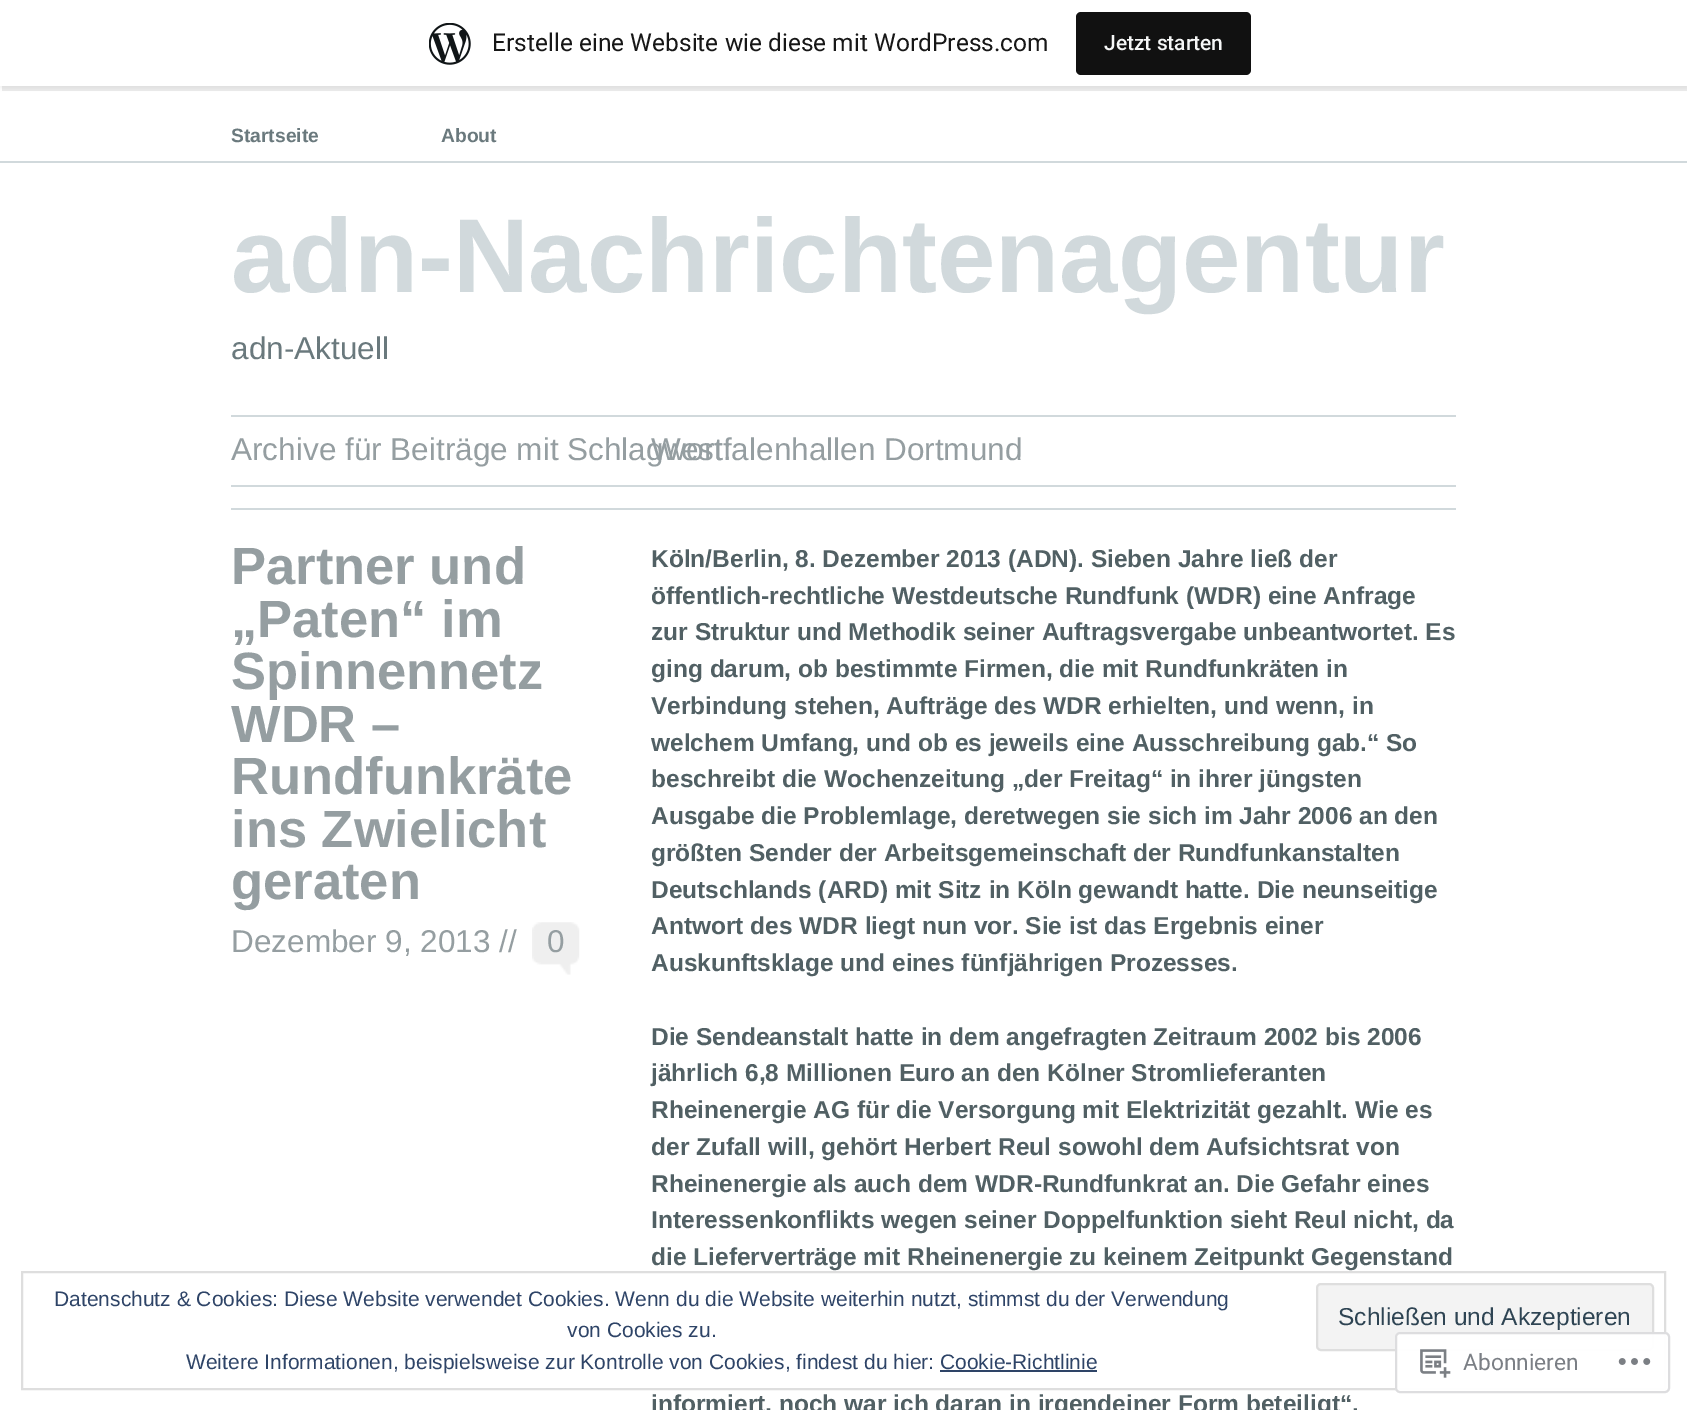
%!PS
<< /PageSize [1687 1410] /PageUsesTransparency true >> setpagedevice
/rgb { dup -16 bitshift 255 div exch dup -8 bitshift 255 and 255 div exch 255 and 255 div setrgbcolor } def
/font { [ exch dup neg 0 0 3 -1 roll 0 0 ] selectfont } def
/text { moveto show } def
/alpha { dup .setfillconstantalpha .setstrokeconstantalpha } def
/roundrect { 5 dict begin { /r /h /w /y /x } { exch def } forall
  x r add y moveto x w add y 2 copy h add r arct x w add y h add x 1 index r arct
  x y h add x y r arct x y 2 copy exch w add exch r arct closepath end } def
/shadow { 12 dict begin { /a /b /q /h /w /y /x } { exch def } forall gsave /was 0 def
  9 -2 -9 { dup b mul 4 div /e exch def 1 sub .425 mul 2.718 exch exp 1 add a .99 .min exch div /now exch def
    1 1 now sub 1 was sub div sub alpha /was now def
    w h .min e 2 mul add 0 gt { x e sub y e sub w e 2 mul add h e 2 mul add
      q e add b .6 mul add w h .min 2 div e add .min 0 .max roundrect fill } if } for grestore end } def
/picture { 5 dict begin { /h /w /y /x /name } { exch def } forall
  gsave x y translate w h scale
  w h 8 [w 0 0 h 0 0] name (r) file false 3 colorimage grestore end } def
0 .pushpdf14devicefilter
0 1410 translate 1 -1 scale
4 setmiterlimit
/s1 { /Roboto-Regular 24.5 font 16#171717 rgb } def
/s2 { /Roboto-Medium 21 font 16#F6F7F7 rgb } def
/s3 { /LiberationSans-Bold 19.25 font 16#6A797D rgb } def
/s4 { /LiberationSans-Bold 105 font 16#D1D9DC rgb } def
/s5 { /LiberationSans-Regular 31.5 font 16#6A797D rgb } def
/s6 { /LiberationSans-Regular 31.5 font 16#959EA1 rgb } def
/s7 { /LiberationSans-Bold 52.5 font 16#959EA1 rgb } def
/s8 { /LiberationSans-Bold 24.5 font 16#516064 rgb } def
/s9 { /LiberationSans-Regular 21 font 16#2E4467 rgb } def
/s10 { /LiberationSans-Regular 24.5 font 16#2E4453 rgb } def
/s11 { /Roboto-Regular 22.75 font 16#7B7F85 rgb } def
16#FFFFFF rgb
0 0 1687 1410 rectfill
16#000000 rgb
0 2 1687 86 0 2 0.05 shadow
0.08 alpha
2 86 moveto 2 91 lineto 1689 91 lineto 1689 5 lineto 1687 5 lineto 1687 86 lineto closepath fill
1 alpha
16#FFFFFF rgb
0 0 1687 86 rectfill
(pic1.raw) 429 23 42 42 picture
s1
(Erstelle eine Website wie diese mit WordPress.com) 492 51 text
16#111111 rgb
1076 12 175 63 5 roundrect fill
s2
(Jetzt starten) 1104 50 text
16#D1D9DC rgb
0 161 1687 2 rectfill
s3
(Startseite) 231 142 text
(About) 441 142 text
s4
(adn-Nachrichtenagentur) 231 292 text
s5
(adn-Aktuell) 231 359 text
16#D1D9DC rgb
231 415 1225 2 rectfill
s6
(Archive für Beiträge mit Schlagwort:) 231 460 text
(Westfalenhallen Dortmund) 651 460 text
16#D1D9DC rgb
231 485 1225 2 rectfill
231 508 1225 2 rectfill
s7
(Partner und) 231 584 text
(„Paten“ im) 231 637 text
(Spinnennetz) 231 689 text
(WDR –) 231 742 text
(Rundfunkräte) 231 794 text
(ins Zwielicht) 231 847 text
(geraten) 231 899 text
s6
(Dezember 9, 2013 //) 231 952 text
(pic2.raw) 532 922 48 53 picture
(0) 547 952 text
s8
(Köln/Berlin, 8. Dezember 2013 \(ADN\). Sieben Jahre ließ der) 651 567 text
(öffentlich-rechtliche Westdeutsche Rundfunk \(WDR\) eine Anfrage) 651 604 text
(zur Struktur und Methodik seiner Auftragsvergabe unbeantwortet. Es) 651 640 text
(ging darum, ob bestimmte Firmen, die mit Rundfunkräten in) 651 677 text
(Verbindung stehen, Aufträge des WDR erhielten, und wenn, in) 651 714 text
(welchem Umfang, und ob es jeweils eine Ausschreibung gab.“ So) 651 751 text
(beschreibt die Wochenzeitung „der Freitag“ in ihrer jüngsten) 651 787 text
(Ausgabe die Problemlage, deretwegen sie sich im Jahr 2006 an den) 651 824 text
(größten Sender der Arbeitsgemeinschaft der Rundfunkanstalten) 651 861 text
(Deutschlands \(ARD\) mit Sitz in Köln gewandt hatte. Die neunseitige) 651 898 text
(Antwort des WDR liegt nun vor. Sie ist das Ergebnis einer) 651 934 text
(Auskunftsklage und eines fünfjährigen Prozesses.) 651 971 text
(Die Sendeanstalt hatte in dem angefragten Zeitraum 2002 bis 2006) 651 1045 text
(jährlich 6,8 Millionen Euro an den Kölner Stromlieferanten) 651 1081 text
(Rheinenergie AG für die Versorgung mit Elektrizität gezahlt. Wie es) 651 1118 text
(der Zufall will, gehört Herbert Reul sowohl dem Aufsichtsrat von) 651 1155 text
(Rheinenergie als auch dem WDR-Rundfunkrat an. Die Gefahr eines) 651 1192 text
(Interessenkonflikts wegen seiner Doppelfunktion sieht Reul nicht, da) 651 1228 text
(die Lieferverträge mit Rheinenergie zu keinem Zeitpunkt Gegenstand) 651 1265 text
(informiert, noch war ich daran in irgendeiner Form beteiligt“.) 651 1412 text
16#DEDEDE rgb
2 setlinewidth
22 1272 1643 117 rectstroke
s9
(Datenschutz & Cookies: Diese Website verwendet Cookies. Wenn du die Website weiterhin nutzt, stimmst du der Verwendung) 54 1306 text
(von Cookies zu.) 567 1337 text
16#F3F3F3 rgb
1317 1284 336 66 4 roundrect gsave fill grestore
16#DEDEDE rgb
stroke
s10
(Schließen und Akzeptieren) 1338 1325 text
s9
(Weitere Informationen, beispielsweise zur Kontrolle von Cookies, findest du hier: Cookie-Richtlinie) 186 1369 text
940 1370 157 2 rectfill
0.98 alpha
16#FFFFFF rgb
1395 1332 275 61 5 roundrect fill
16#DCDCDE rgb
1396 1333 273 59 4 roundrect stroke
1 alpha
(pic3.raw) 1420 1349 31 29 picture
s11
(Abonnieren) 1463 1370 text
(pic4.raw) 1618 1358 33 7 picture
.poppdf14devicefilter showpage
